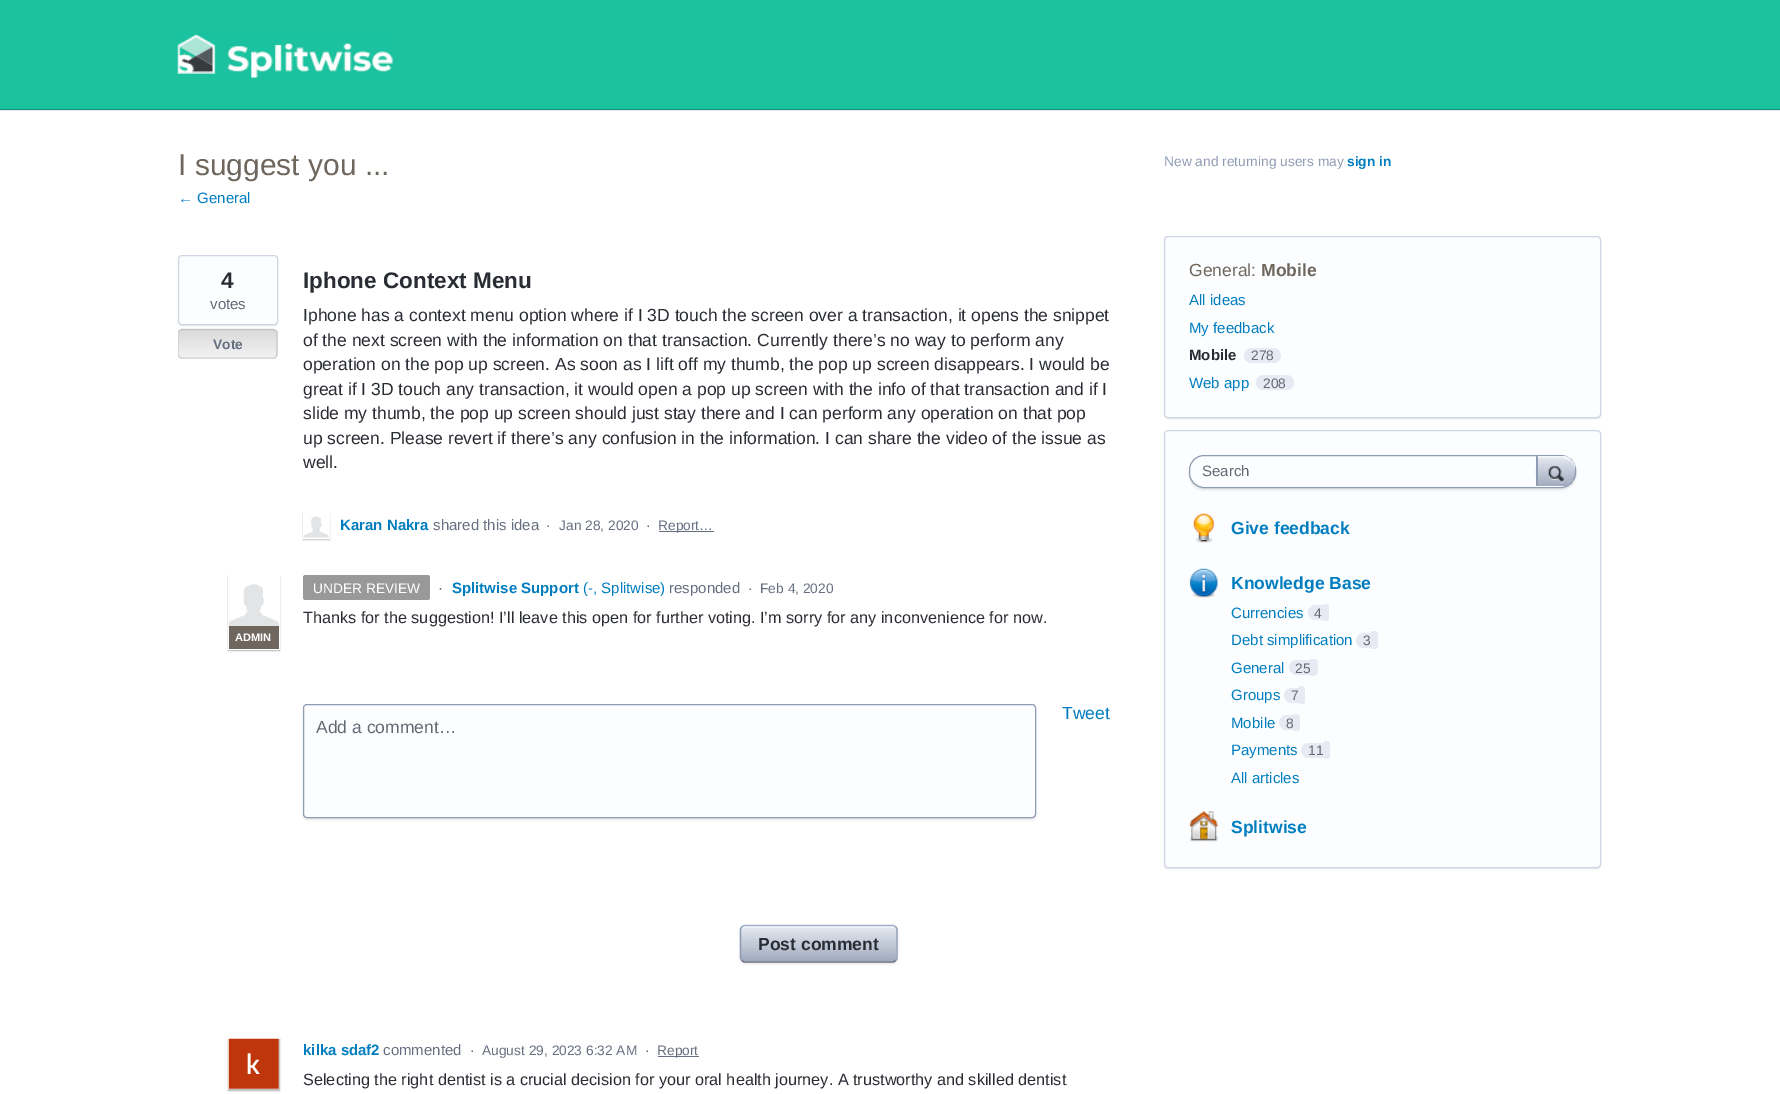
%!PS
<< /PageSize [1780 1094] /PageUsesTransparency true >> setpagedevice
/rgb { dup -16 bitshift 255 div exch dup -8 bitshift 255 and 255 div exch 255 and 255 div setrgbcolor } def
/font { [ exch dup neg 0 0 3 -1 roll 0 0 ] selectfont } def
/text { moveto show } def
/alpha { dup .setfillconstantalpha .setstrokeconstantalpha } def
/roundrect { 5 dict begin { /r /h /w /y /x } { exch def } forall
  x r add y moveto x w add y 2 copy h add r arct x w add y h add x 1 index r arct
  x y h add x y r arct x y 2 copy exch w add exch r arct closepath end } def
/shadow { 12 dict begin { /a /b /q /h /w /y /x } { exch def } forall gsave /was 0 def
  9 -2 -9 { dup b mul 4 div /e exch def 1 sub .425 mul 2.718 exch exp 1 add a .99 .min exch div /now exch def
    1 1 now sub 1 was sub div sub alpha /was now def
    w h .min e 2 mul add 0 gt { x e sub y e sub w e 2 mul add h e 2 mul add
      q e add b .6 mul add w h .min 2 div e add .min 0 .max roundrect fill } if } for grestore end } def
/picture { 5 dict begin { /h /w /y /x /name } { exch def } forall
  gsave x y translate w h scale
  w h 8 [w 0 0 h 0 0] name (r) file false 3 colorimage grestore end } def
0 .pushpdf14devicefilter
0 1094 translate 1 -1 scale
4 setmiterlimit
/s1 { /LiberationSans-Regular 30 font 16#6F675E rgb } def
/s2 { /LiberationSans-Regular 15 font 16#007DBF rgb } def
/s3 { /LiberationSans-Bold 22.5 font 16#292C33 rgb } def
/s4 { /LiberationSans-Regular 15 font 16#616973 rgb } def
/s5 { /LiberationSans-Bold 13.75 font 16#666F80 rgb } def
/s6 { /LiberationSans-Regular 17.5 font 16#292C33 rgb } def
/s7 { /LiberationSans-Bold 15 font 16#007DBF rgb } def
/s8 { /LiberationSans-Regular 15 font 16#666F80 rgb } def
/s9 { /LiberationSans-Regular 13.75 font 16#616973 rgb } def
/s10 { /LiberationSans-Regular 13.75 font 16#666F80 rgb } def
/s11 { /LiberationSans-Bold 11 font 16#FFFFFF rgb } def
/s12 { /LiberationSans-Regular 13.75 font 16#FFFFFF rgb } def
/s13 { /LiberationSans-Regular 16.25 font 16#292C33 rgb } def
/s14 { /LiberationSans-Regular 17.5 font 16#007DBF rgb } def
/s15 { /LiberationSans-Regular 17.5 font 16#616973 rgb } def
/s16 { /LiberationSans-Bold 17.5 font 16#292C33 rgb } def
/s17 { /LiberationSans-Regular 13.75 font 16#8F9BB3 rgb } def
/s18 { /LiberationSans-Bold 13.75 font 16#007DBF rgb } def
/s19 { /LiberationSans-Regular 17.5 font 16#6F675E rgb } def
/s20 { /LiberationSans-Bold 17.5 font 16#6F675E rgb } def
/s21 { /LiberationSans-Bold 15 font 16#292C33 rgb } def
/s22 { /LiberationSans-Bold 17.5 font 16#007DBF rgb } def
16#FFFFFF rgb
0 0 1780 1094 rectfill
16#1CC29E rgb
0 0 1780 109 rectfill
16#159277 rgb
0 109 1780 1 rectfill
(pic1.raw) 177 34 216 44 picture
16#E3E8F2 rgb
0 110 1780 1 rectfill
s1
(I suggest you ...) 178 175 text
s2
(← General) 178 203 text
16#000000 rgb
178 256 100 70 4 0.5 0.1 shadow
16#FCFDFF rgb
178.5 255.5 99 69 3.5 roundrect gsave fill grestore
16#CFD7E6 rgb
stroke
s3
(4) 221 288 text
s4
(votes) 210 309 text
gsave
178 329 100 30 5 roundrect clip newpath
gsave 178 330 moveto 278 330 lineto 278 358 lineto 178 358 lineto closepath clip newpath
<< /ShadingType 2 /ColorSpace /DeviceRGB /Coords [179 330 179 358] /Extend [true true] /Function << /FunctionType 2 /Domain [0 1] /C0 [0.855 0.855 0.855] /C1 [0.953 0.953 0.953] /N 1 >> >> shfill grestore
gsave 178 358 moveto 278 358 lineto 278 359 lineto 178 359 lineto closepath clip newpath
<< /ShadingType 2 /ColorSpace /DeviceRGB /Coords [179 358 179 385] /Extend [true true] /Function << /FunctionType 2 /Domain [0 1] /C0 [0.855 0.855 0.855] /C1 [0.953 0.953 0.953] /N 1 >> >> shfill grestore
grestore
16#C5C5C5 rgb
1.2 setlinewidth
179.5 330.5 moveto 180 330 181.5 329.5 182.5 329.5 curveto 272.5 329.5 lineto 273.5 329.5 275 330 275.5 330.5 curveto stroke
16#CECECE rgb
275.5 330.5 moveto 276.5 331.5 277 332.5 277 334 curveto 277 354 lineto 277 355 276.5 356 275.5 357 curveto stroke
16#D9D9D9 rgb
275.5 357 moveto 275 357.5 273.5 358 272.5 358 curveto 182.5 358 lineto 181.5 358 180 357.5 179.5 357 curveto stroke
gsave
178 143 1425 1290 rectclip
16#CECECE rgb
179.5 357 moveto 178.5 356 178 355 178 354 curveto 178 334 lineto 178 332.5 178.5 331.5 179.5 330.5 curveto stroke
grestore
s5
(Vote) 213 349 text
s3
(Iphone Context Menu) 303 288 text
s6
(Iphone has a context menu option where if I 3D touch the screen over a transaction, it opens the snippet) 303 321 text
(of the next screen with the information on that transaction. Currently there’s no way to perform any) 303 346 text
(operation on the pop up screen. As soon as I lift off my thumb, the pop up screen disappears. I would be) 303 370 text
(great if I 3D touch any transaction, it would open a pop up screen with the info of that transaction and if I) 303 395 text
(slide my thumb, the pop up screen should just stay there and I can perform any operation on that pop) 303 419 text
(up screen. Please revert if there’s any confusion in the information. I can share the video of the issue as) 303 444 text
(well.) 303 468 text
gsave
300 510 moveto 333 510 lineto 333 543 lineto 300 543 lineto closepath 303 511 moveto 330 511 lineto 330 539 lineto 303 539 lineto closepath eoclip newpath
16#000000 rgb
303 513 27 27 0 0.5 0.25 shadow
grestore
16#FFFFFF rgb
1 setlinewidth
303.5 511.5 26 27 rectstroke
(pic2.raw) 303 516 26 22 picture
s7
(Karan Nakra) 340 530 text
s8
(shared this idea) 433 530 text
s9
(·) 546 530 text
s10
(Jan 28, 2020) 559 530 text
s9
(·) 646 530 text
16#666F80 rgb
659 531 55 1 rectfill
(Report…) 658 530 text
s7
(Splitwise Support) 452 593 text
s2
(\(-, Splitwise\)) 583 593 text
gsave
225 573 moveto 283 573 lineto 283 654 lineto 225 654 lineto closepath 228 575 moveto 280 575 lineto 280 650 lineto 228 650 lineto closepath eoclip newpath
16#000000 rgb
228 576 52 75 0 0.5 0.25 shadow
grestore
(pic3.raw) 228 584 51 43 picture
16#6F675E rgb
229 626 50 23 rectfill
s11
(ADMIN) 235 641 text
s8
(responded) 669 593 text
16#999999 rgb
303 575 127 25 2.5 roundrect fill
s12
(UNDER REVIEW) 313 593 text
s4
(·) 438 593 text
s9
(·) 748 593 text
s10
(Feb 4, 2020) 760 593 text
s13
(Thanks for the suggestion! I’ll leave this open for further voting. I’m sorry for any inconvenience for now.) 303 623 text
s14
(Tweet) 1062 719 text
16#000000 rgb
303 706 733 114 4 1 0.1 shadow
16#FCFDFF rgb
303.5 704.5 732 113 3.5 roundrect gsave fill grestore
16#8F9BB3 rgb
stroke
s15
(Add a comment…) 316 733 text
16#000000 rgb
740 926 158 38 5 1 0.1 shadow
gsave 741 926 155 35 4 roundrect clip newpath
<< /ShadingType 2 /ColorSpace /DeviceRGB /Coords [741 926 741 961] /Extend [true true] /Function << /FunctionType 2 /Domain [0 1] /C0 [0.902 0.918 0.949] /C1 [0.635 0.675 0.749] /N 1 >> >> shfill grestore
0.5 alpha
16#FFFFFF rgb
745 928 moveto 892 928 lineto 895 928 896 929 896 931 curveto 896 929 895 927 893 926 curveto 744 926 lineto 742 927 741 929 741 931 curveto 741 929 743 928 745 928 curveto closepath fill
1 alpha
16#A3B1CC rgb
1.2 setlinewidth
742 927 moveto 742.5 926 744 925.5 745 925.5 curveto 892.5 925.5 lineto 893.5 925.5 895 926 895.5 927 curveto stroke
16#8F9BB3 rgb
895.5 927 moveto 896.5 927.5 897 929 897 930 curveto 897 957.5 lineto 897 958.5 896.5 960 895.5 960.5 curveto stroke
16#666F80 rgb
895.5 960.5 moveto 895 961.5 893.5 962 892.5 962 curveto 745 962 lineto 744 962 742.5 961.5 742 960.5 curveto stroke
16#8F9BB3 rgb
742 960.5 moveto 741 960 740.5 958.5 740.5 957.5 curveto 740.5 930 lineto 740.5 929 741 927.5 742 927 curveto stroke
s16
(Post comment) 758 950 text
16#000000 rgb
228 1039 52 52 0 0.5 0.25 shadow
(pic4.raw) 228 1038 51 51 picture
s7
(kilka sdaf2) 303 1055 text
s8
(commented) 383 1055 text
s9
(·) 470 1055 text
s10
(August 29, 2023 6:32 AM) 482 1055 text
s9
(·) 645 1055 text
16#666F80 rgb
658 1056 41 1 rectfill
(Report) 657 1055 text
s13
(Selecting the right dentist is a crucial decision for your oral health journey. A trustworthy and skilled dentist) 303 1085 text
s17
(New and returning users may) 1164 166 text
s18
(sign in) 1347 166 text
16#000000 rgb
1164 238 437 181 4 0.5 0.1 shadow
16#FCFDFF rgb
1164.5 236.5 436 181 3.5 roundrect gsave fill grestore
16#CFD7E6 rgb
1 setlinewidth
stroke
s19
(General:) 1189 276 text
s20
(Mobile) 1261 276 text
s2
(All ideas) 1189 305 text
(My feedback) 1189 333 text
s21
(Mobile) 1189 360 text
16#E7EAF2 rgb
1244 348 37 15 7.5 roundrect fill
s9
(278) 1251 360 text
s2
(Web app) 1189 388 text
16#E7EAF2 rgb
1256 375 38 15 7.5 roundrect fill
s9
(208) 1263 388 text
16#000000 rgb
1164 431 437 438 4 0.5 0.1 shadow
16#FCFDFF rgb
1164.5 430.5 436 437 3.5 roundrect gsave fill grestore
16#CFD7E6 rgb
stroke
16#000000 rgb
1189 458 387 32 15 1 0.1 shadow
16#FCFDFF rgb
1189.5 455.5 386 32 14.5 roundrect gsave fill grestore
16#8F9BB3 rgb
stroke
s4
(Search) 1202 476 text
gsave
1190 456 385 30 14 roundrect clip newpath
16#000000 rgb
1536 456 40 32 15 1 0.1 shadow
grestore
gsave 1537.5 456 moveto 1561 456 lineto 1569 456 1575 462.5 1575 470 curveto 1575 471 lineto 1575 479.5 1569 486 1561 486 curveto 1537.5 486 lineto closepath clip newpath
<< /ShadingType 2 /ColorSpace /DeviceRGB /Coords [1538 456 1538 486] /Extend [true true] /Function << /FunctionType 2 /Domain [0 1] /C0 [0.902 0.918 0.949] /C1 [0.635 0.675 0.749] /N 1 >> >> shfill grestore
0.5 alpha
16#FFFFFF rgb
1538 458 moveto 1561 458 lineto 1569 458 1575 464 1575 471 curveto 1575 470 lineto 1575 462.5 1569 456 1561 456 curveto 1537.5 456 lineto 1537.5 486 lineto 1538 486 lineto closepath fill
1 alpha
16#A3B1CC rgb
1538 456 moveto 1538 457 lineto 1537 456 lineto closepath fill
16#8F9BB3 rgb
1572.5 480 moveto 1574 477.5 1575 474.5 1575 471 curveto 1575 474.5 1574.5 477.5 1572.5 480 curveto closepath 1537 456 moveto 1538 457 lineto 1538 486 lineto 1536 486 lineto 1536 456 lineto closepath fill
(pic5.raw) 1548 466 16 17 picture
(pic6.raw) 1193 513 21 30 picture
s22
(Give feedback) 1231 534 text
(pic7.raw) 1189 568 29 30 picture
(Knowledge Base) 1231 589 text
s2
(Currencies) 1231 618 text
16#E7EAF2 rgb
1315.5 605 moveto 1323 605 lineto 1323 620 lineto 1315.5 620 lineto 1311.5 620 1308 616.5 1308 612.5 curveto 1308 608.5 1311.5 605 1315.5 605 curveto closepath fill
s9
(4) 1314 618 text
16#E7EAF2 rgb
1323 604 moveto 1326 604 lineto 1327.5 604 1329 605.5 1329 607 curveto 1329 618 lineto 1329 619.5 1327.5 621 1326 621 curveto 1323 621 lineto closepath fill
s2
(Debt simplification) 1231 645 text
16#E7EAF2 rgb
1363.5 633 moveto 1371 633 lineto 1371 648 lineto 1363.5 648 lineto 1359.5 648 1356 644.5 1356 640.5 curveto 1356 636.5 1359.5 633 1363.5 633 curveto closepath fill
s9
(3) 1363 645 text
16#E7EAF2 rgb
1371 631 moveto 1374.5 631 lineto 1376.5 631 1378 632.5 1378 634.5 curveto 1378 645.5 lineto 1378 647.5 1376.5 649 1374.5 649 curveto 1371 649 lineto closepath fill
s2
(General) 1231 673 text
16#E7EAF2 rgb
1296.5 660 moveto 1310 660 lineto 1310 675 lineto 1296.5 675 lineto 1292.5 675 1289 671.5 1289 667.5 curveto 1289 663.5 1292.5 660 1296.5 660 curveto closepath fill
s9
(25) 1295 673 text
16#E7EAF2 rgb
1310 659 moveto 1314 659 lineto 1316 659 1318 661 1318 663 curveto 1318 672 lineto 1318 674 1316 676 1314 676 curveto 1310 676 lineto closepath fill
s2
(Groups) 1231 700 text
16#E7EAF2 rgb
1291.5 688 moveto 1299 688 lineto 1299 703 lineto 1291.5 703 lineto 1287.5 703 1284 699.5 1284 695.5 curveto 1284 691.5 1287.5 688 1291.5 688 curveto closepath fill
s9
(7) 1291 700 text
16#E7EAF2 rgb
1299 686 moveto 1302 686 lineto 1303.5 686 1305 687.5 1305 689 curveto 1305 701 lineto 1305 702.5 1303.5 704 1302 704 curveto 1299 704 lineto closepath fill
s2
(Mobile) 1231 728 text
16#E7EAF2 rgb
1286.5 715 moveto 1294 715 lineto 1294 730 lineto 1286.5 730 lineto 1282.5 730 1279 726.5 1279 722.5 curveto 1279 718.5 1282.5 715 1286.5 715 curveto closepath fill
s9
(8) 1286 728 text
16#E7EAF2 rgb
1294 714 moveto 1297 714 lineto 1298.5 714 1300 715.5 1300 717 curveto 1300 728 lineto 1300 729.5 1298.5 731 1297 731 curveto 1294 731 lineto closepath fill
s2
(Payments) 1231 755 text
16#E7EAF2 rgb
1308.5 743 moveto 1324 743 lineto 1324 758 lineto 1308.5 758 lineto 1304.5 758 1301 754.5 1301 750.5 curveto 1301 746.5 1304.5 743 1308.5 743 curveto closepath fill
s9
(11) 1308 755 text
16#E7EAF2 rgb
1324 741 moveto 1327 741 lineto 1328.5 741 1330 742.5 1330 744 curveto 1330 756 lineto 1330 757.5 1328.5 759 1327 759 curveto 1324 759 lineto closepath fill
s2
(All articles) 1231 783 text
(pic8.raw) 1189 811 30 31 picture
s22
(Splitwise) 1231 833 text
.poppdf14devicefilter showpage
